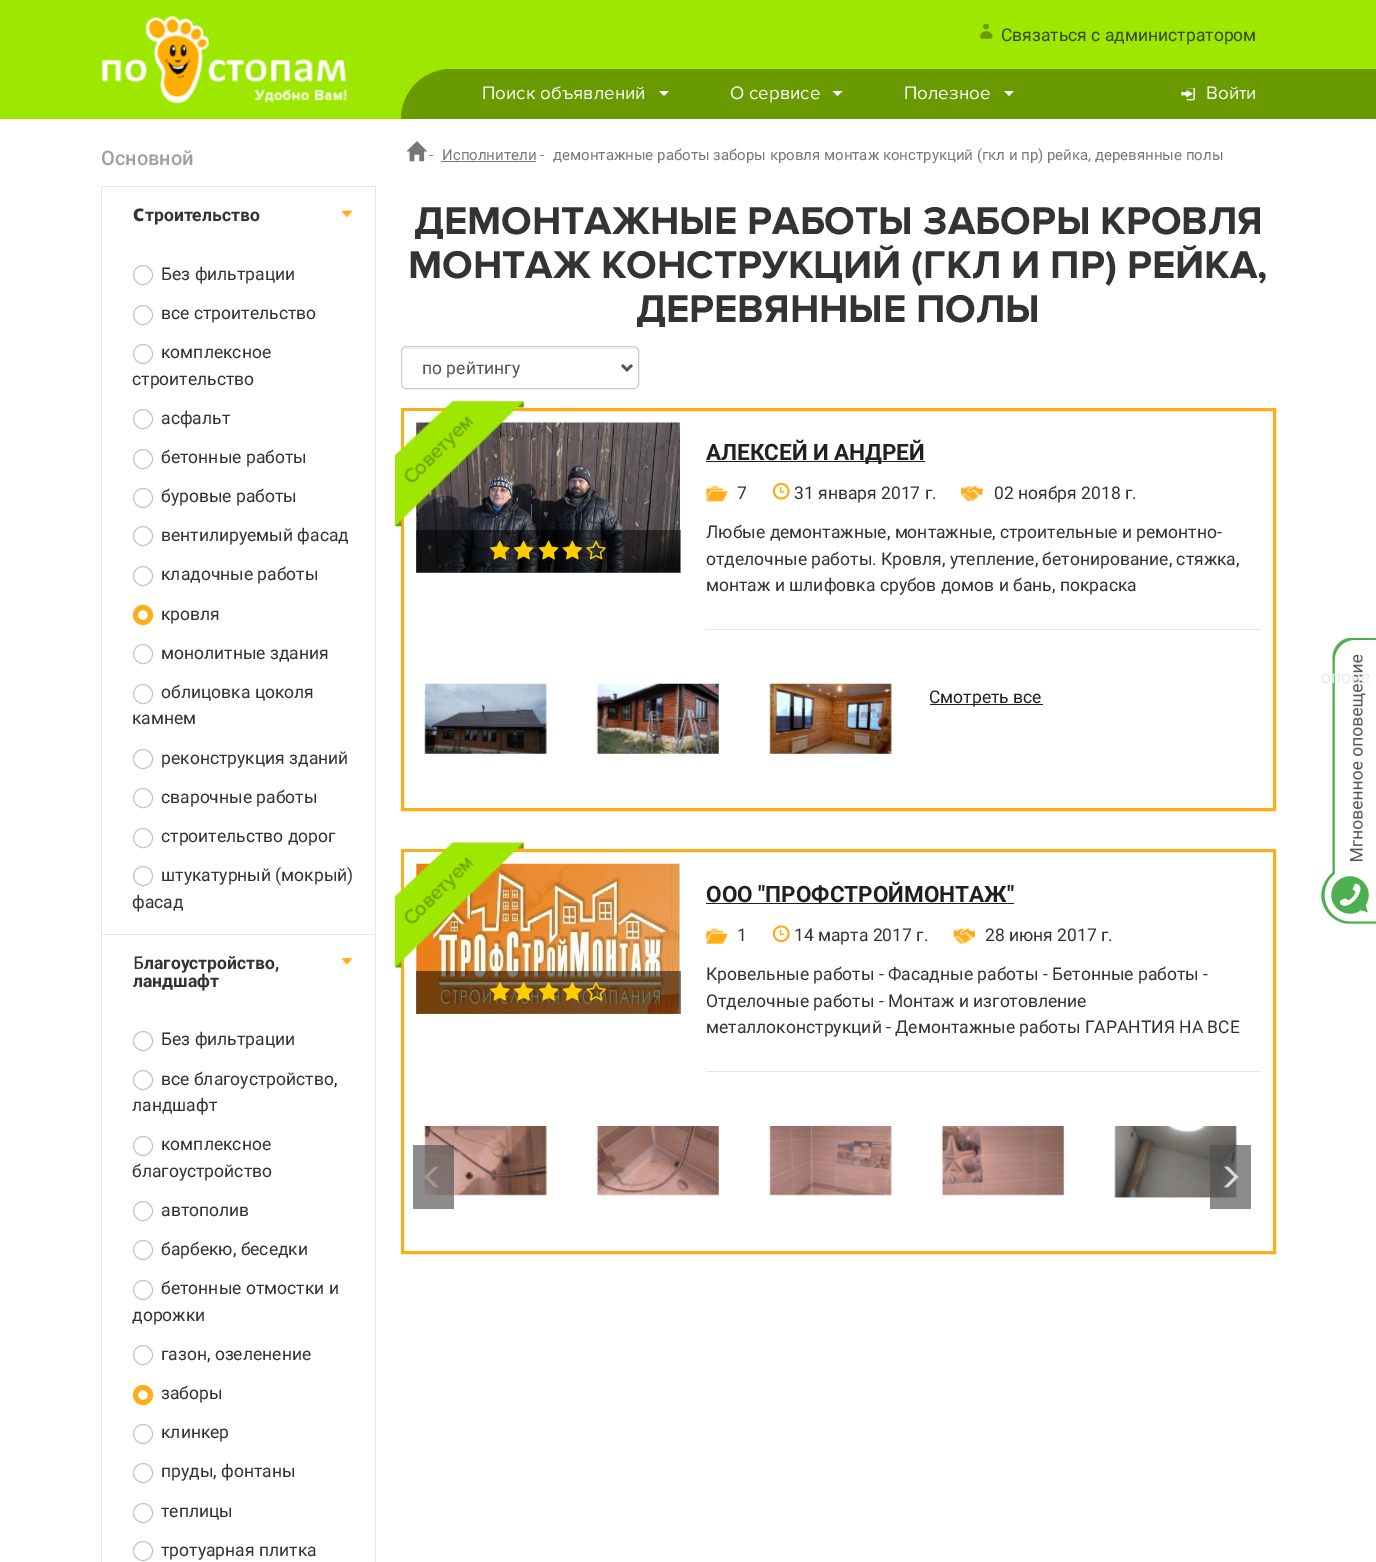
%!PS
<< /PageSize [1376 1562] /PageUsesTransparency true >> setpagedevice
/rgb { dup -16 bitshift 255 div exch dup -8 bitshift 255 and 255 div exch 255 and 255 div setrgbcolor } def
/font { [ exch dup neg 0 0 3 -1 roll 0 0 ] selectfont } def
/text { moveto show } def
/alpha { dup .setfillconstantalpha .setstrokeconstantalpha } def
/circle { newpath 0 360 arc closepath } def
/roundrect { 5 dict begin { /r /h /w /y /x } { exch def } forall
  x r add y moveto x w add y 2 copy h add r arct x w add y h add x 1 index r arct
  x y h add x y r arct x y 2 copy exch w add exch r arct closepath end } def
/picture { 5 dict begin { /h /w /y /x /name } { exch def } forall
  gsave x y translate w h scale
  w h 8 [w 0 0 h 0 0] name (r) file false 3 colorimage grestore end } def
0 .pushpdf14devicefilter
0 1562 translate 1 -1 scale
4 setmiterlimit
/s1 { /Roboto-Regular 17.5 font 16#3A4812 rgb } def
/s2 { /ProximaNova-Regular 18.75 font 16#FFFFFF rgb } def
/s3 { /Roboto-Medium 20 font 16#9F9F9F rgb } def
/s4 { /NotoSans-Black 17.5 font 16#333333 rgb } def
/s5 { /Roboto-Bold 17.5 font 16#333333 rgb } def
/s6 { /Roboto-Regular 17.5 font 16#333333 rgb } def
/s7 { /NotoSans-Medium 17.5 font 16#333333 rgb } def
/s8 { /Roboto-Regular 15 font 16#777777 rgb } def
/s9 { /ProximaNova-Bold 40 font 16#333333 rgb } def
/s10 { /Roboto-Regular 17.5 font 16#555555 rgb } def
/s11 { /Roboto-Bold 22.5 font 16#202020 rgb } def
/s12 { /Roboto-Regular 17.5 font 16#202020 rgb } def
/s13 { /Roboto-Regular 17.5 font 16#E6EDE6 rgb } def
16#FFFFFF rgb
0 0 1376 1562 rectfill
16#9EE700 rgb
0 0 1376 119 rectfill
(pic1.raw) 101 16 247 88 picture
(pic2.raw) 980 24 13 15 picture
s1
(Связаться с администратором) 1001 41 text
16#699A00 rgb
451 69 moveto 1276 69 lineto 1276 119 lineto 401 119 lineto 401 91.5 423.5 69 451 69 curveto closepath fill
s2
(Поиск объявлений) 482 99 text
659 91 moveto 669 91 lineto 664 96 lineto closepath fill
(О сервисе) 730 99 text
832.5 91 moveto 842.5 91 lineto 837.5 96 lineto closepath fill
(Полезное) 904 99 text
1004 91 moveto 1014 91 lineto 1009 96 lineto closepath fill
(pic3.raw) 1181 88 14 13 picture
(Войти) 1206 99 text
16#699A00 rgb
1276 69 100 50 rectfill
s3
(Основной) 101 165 text
16#E7E7E7 rgb
101 186 275 1 rectfill
375 186 1 57 rectfill
101 186 1 57 rectfill
s4
(С) 133 221 text
s5
(троительство) 145 221 text
(pic4.raw) 341 210 11 7 picture
16#E7E7E7 rgb
375 243 1 691 rectfill
101 243 1 691 rectfill
16#C4C4C4 rgb
143 275 9.5 circle stroke
s6
(Без фильтрации) 161 280 text
16#C4C4C4 rgb
143 315 9.5 circle stroke
s6
(все строительство) 161 319 text
16#C4C4C4 rgb
143 354 9.5 circle stroke
s6
(комплексное) 161 358 text
(строительство) 132 385 text
16#C4C4C4 rgb
143 419 9.5 circle stroke
s6
(асфальт) 161 424 text
16#C4C4C4 rgb
143 459 9.5 circle stroke
s6
(бетонные работы) 161 463 text
16#C4C4C4 rgb
143 498 9.5 circle stroke
s6
(буровые работы) 161 502 text
16#C4C4C4 rgb
143 536 9.5 circle stroke
s6
(вентилируемый фасад) 161 541 text
16#C4C4C4 rgb
143 576 9.5 circle stroke
s6
(кладочные работы) 161 580 text
16#FFAC17 rgb
5 setlinewidth
143 615 7.5 circle stroke
s6
(кровля) 161 620 text
16#C4C4C4 rgb
1 setlinewidth
143 654 9.5 circle stroke
s6
(монолитные здания) 161 659 text
16#C4C4C4 rgb
143 694 9.5 circle stroke
s6
(облицовка цоколя) 161 698 text
(камнем) 132 724 text
16#C4C4C4 rgb
143 759 9.5 circle stroke
s6
(реконструкция зданий) 161 764 text
16#C4C4C4 rgb
143 798 9.5 circle stroke
s6
(сварочные работы) 161 803 text
16#C4C4C4 rgb
143 838 9.5 circle stroke
s6
(строительство дорог) 161 842 text
16#C4C4C4 rgb
143 876 9.5 circle stroke
s6
(штукатурный \(мокрый\)) 161 881 text
(фасад) 132 908 text
16#E7E7E7 rgb
101 934 275 1 rectfill
375 934 1 74 rectfill
101 934 1 74 rectfill
s7
(Б) 133 969 text
s5
(лагоустройство,) 144 969 text
(pic5.raw) 341 958 11 7 picture
(ландшафт) 133 987 text
16#E7E7E7 rgb
375 1008 1 554 rectfill
101 1008 1 554 rectfill
16#C4C4C4 rgb
143 1041 9.5 circle stroke
s6
(Без фильтрации) 161 1045 text
16#C4C4C4 rgb
143 1080 9.5 circle stroke
s6
(все благоустройство,) 161 1085 text
(ландшафт) 132 1111 text
16#C4C4C4 rgb
143 1146 9.5 circle stroke
s6
(комплексное) 161 1150 text
(благоустройство) 132 1177 text
16#C4C4C4 rgb
143 1211 9.5 circle stroke
s6
(автополив) 161 1216 text
16#C4C4C4 rgb
143 1250 9.5 circle stroke
s6
(барбекю, беседки) 161 1255 text
16#C4C4C4 rgb
143 1290 9.5 circle stroke
s6
(бетонные отмостки и) 161 1294 text
(дорожки) 132 1321 text
16#C4C4C4 rgb
143 1355 9.5 circle stroke
s6
(газон, озеленение) 161 1360 text
16#FFAC17 rgb
5 setlinewidth
143 1395 7.5 circle stroke
s6
(заборы) 161 1399 text
16#C4C4C4 rgb
1 setlinewidth
143 1434 9.5 circle stroke
s6
(клинкер) 161 1438 text
16#C4C4C4 rgb
143 1473 9.5 circle stroke
s6
(пруды, фонтаны) 161 1477 text
16#C4C4C4 rgb
143 1513 9.5 circle stroke
s6
(теплицы) 161 1517 text
16#C4C4C4 rgb
143 1551 9.5 circle stroke
s6
(тротуарная плитка) 161 1556 text
(pic6.raw) 406 141 22 21 picture
s8
(-) 429 160 text
(Исполнители -) 442 160 text
441 161 95 1 rectfill
(демонтажные работы заборы кровля монтаж конструкций \(гкл и пр\) рейка, деревянные полы) 553 160 text
s9
(ДЕМОНТАЖНЫЕ РАБОТЫ ЗАБОРЫ КРОВЛЯ) 414 234 text
(МОНТАЖ КОНСТРУКЦИЙ \(ГКЛ И ПР\) РЕЙКА,) 408 278 text
(ДЕРЕВЯННЫЕ ПОЛЫ) 636 322 text
16#ECECEC rgb
406 349 moveto 634 349 lineto 636 349 638 350 638 352 curveto 638 350 636 348 634 348 curveto 407 348 lineto 406 348 405 349 404 349 curveto closepath fill
16#CCCCCC rgb
401.5 346.5 237 42 4.5 roundrect stroke
16#555555 rgb
2.5 setlinewidth
622 365 moveto 627 370 lineto 632 365 lineto stroke
s10
(по рейтингу) 422 374 text
16#FFAC17 rgb
3 setlinewidth
402.5 409.5 872 400 rectstroke
(pic8.raw) 416 422 264 151 picture
(pic7.raw) 395 401 129 126 picture
0.5 alpha
16#000000 rgb
416 530 265 43 rectfill
1 alpha
(pic9.raw) 490 540 20 20 picture
(pic10.raw) 513 540 21 20 picture
(pic11.raw) 538 540 21 20 picture
(pic12.raw) 562 540 21 20 picture
(pic13.raw) 586 540 20 20 picture
16#202020 rgb
706 461 219 1 rectfill
s11
(АЛЕКСЕЙ И АНДРЕЙ) 706 460 text
(pic14.raw) 706 486 22 16 picture
s6
(7) 737 499 text
(pic15.raw) 772 482 18 18 picture
(31 января 2017 г.) 794 499 text
(pic16.raw) 961 486 22 16 picture
(02 ноября 2018 г.) 994 499 text
(Любые демонтажные, монтажные, строительные и ремонтно-) 706 538 text
(отделочные работы. Кровля, утепление, бетонирование, стяжка,) 706 565 text
(монтаж и шлифовка срубов домов и бань, покраска) 706 591 text
16#E7E7E7 rgb
706 629 555 1 rectfill
(pic17.raw) 424 683 123 71 picture
(pic18.raw) 596 683 123 71 picture
(pic19.raw) 769 683 123 71 picture
16#202020 rgb
930 704 113 1 rectfill
(Смотреть все) 929 703 text
16#FFAC17 rgb
402.5 850.5 872 402 rectstroke
(pic21.raw) 416 863 264 151 picture
(pic20.raw) 395 842 129 126 picture
0.5 alpha
16#000000 rgb
416 971 265 43 rectfill
1 alpha
(pic22.raw) 490 982 20 19 picture
(pic23.raw) 513 982 21 19 picture
(pic24.raw) 538 982 21 19 picture
(pic25.raw) 562 982 21 19 picture
(pic26.raw) 586 982 20 19 picture
s11
(ООО "ПРОФСТРОЙМОНТАЖ") 706 902 text
706 903 308 1 rectfill
(pic27.raw) 706 928 22 16 picture
s6
(1) 737 941 text
(pic28.raw) 772 925 18 18 picture
(14 марта 2017 г.) 794 941 text
(pic29.raw) 953 928 22 16 picture
(28 июня 2017 г.) 985 941 text
(Кровельные работы - Фасадные работы - Бетонные работы -) 706 980 text
(Отделочные работы - Монтаж и изготовление) 706 1007 text
(металлоконструкций - Демонтажные работы ГАРАНТИЯ НА ВСЕ) 706 1033 text
16#E7E7E7 rgb
706 1071 555 1 rectfill
(pic30.raw) 424 1126 123 70 picture
(pic31.raw) 596 1126 123 70 picture
(pic32.raw) 769 1126 123 70 picture
(pic33.raw) 941 1126 123 70 picture
(pic34.raw) 1114 1126 123 72 picture
0.66 alpha
16#505050 rgb
413 1145 41 64 rectfill
1 alpha
(pic35.raw) 424 1166 15 22 picture
0.66 alpha
1210 1145 41 64 rectfill
1 alpha
(pic36.raw) 1224 1166 15 22 picture
(pic37.raw) 1321 638 55 286 picture
s13
(опове) 1321 683 text
.poppdf14devicefilter showpage
